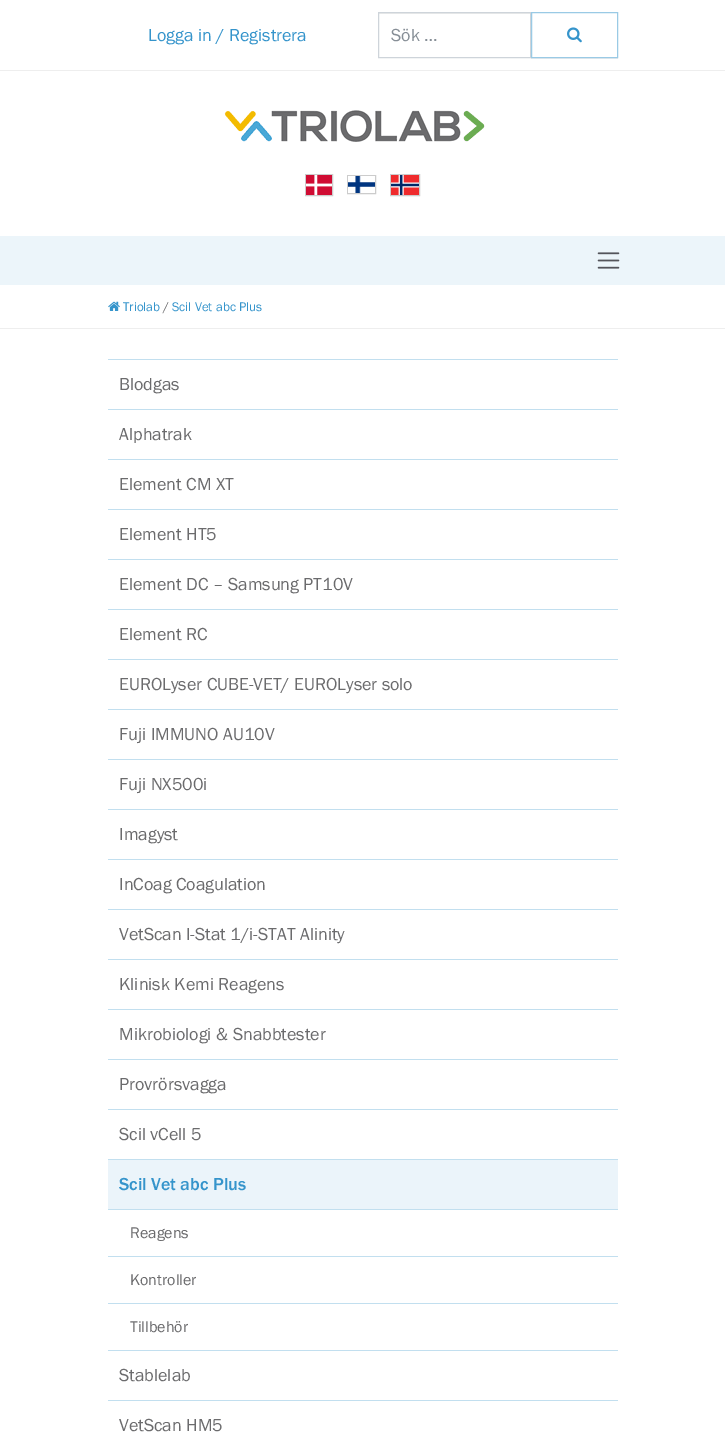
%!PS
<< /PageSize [725 1443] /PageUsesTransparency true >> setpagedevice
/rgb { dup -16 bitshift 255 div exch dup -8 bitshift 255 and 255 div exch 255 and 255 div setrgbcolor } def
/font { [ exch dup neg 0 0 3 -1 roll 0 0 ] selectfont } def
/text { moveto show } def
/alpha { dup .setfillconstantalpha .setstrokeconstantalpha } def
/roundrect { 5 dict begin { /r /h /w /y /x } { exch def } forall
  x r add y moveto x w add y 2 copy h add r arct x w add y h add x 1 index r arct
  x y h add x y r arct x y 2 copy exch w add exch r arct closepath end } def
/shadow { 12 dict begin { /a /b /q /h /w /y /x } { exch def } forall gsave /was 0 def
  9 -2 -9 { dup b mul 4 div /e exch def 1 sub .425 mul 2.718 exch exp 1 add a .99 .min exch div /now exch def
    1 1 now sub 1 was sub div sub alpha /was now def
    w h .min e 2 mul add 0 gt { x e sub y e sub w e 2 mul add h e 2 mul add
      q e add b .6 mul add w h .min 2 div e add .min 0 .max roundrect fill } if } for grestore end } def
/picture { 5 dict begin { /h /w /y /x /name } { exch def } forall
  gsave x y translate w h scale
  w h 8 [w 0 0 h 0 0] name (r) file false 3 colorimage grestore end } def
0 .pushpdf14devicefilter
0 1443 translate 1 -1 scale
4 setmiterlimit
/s1 { /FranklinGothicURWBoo-Regular 18 font 16#3594CB rgb } def
/s2 { /FranklinGothicURWBoo-Regular 18 font 16#868E96 rgb } def
/s3 { /FranklinGothicURWBoo-Regular 13 font 16#3594CB rgb } def
/s4 { /FranklinGothicURWBoo-Regular 13 font 16#6B6B6D rgb } def
/s5 { /FranklinGothicURWBoo-Regular 18 font 16#6B6B6D rgb } def
/s6 { /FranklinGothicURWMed-Regular 18 font 16#3594CB rgb } def
/s7 { /FranklinGothicURWBoo-Regular 16 font 16#6B6B6D rgb } def
16#FFFFFF rgb
0 0 725 1443 rectfill
16#EEEEEE rgb
0 70 725 1 rectfill
s1
(Logga in / Registrera) 148 41 text
gsave
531 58 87 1 rectclip
16#000000 rgb
531 13 87 46 0 0.5 0.07 shadow
grestore
16#ECECEC rgb
379 13 151 1 rectfill
16#CED4DA rgb
378.5 12.5 152 45 rectstroke
s2
(Sök …) 391 41 text
16#9ACAE5 rgb
531.5 12.5 86 45 rectstroke
(pic1.raw) 567 27 15 16 picture
(pic2.raw) 224 110 261 32 picture
16#CCCCCC rgb
305.5 174.5 27 21 rectstroke
390.5 174.5 29 21 rectstroke
(pic3.raw) 306 175 26 20 picture
347.5 175.5 28 18 rectstroke
(pic4.raw) 391 175 28 20 picture
(pic5.raw) 348 176 27 17 picture
16#ECF5FA rgb
0 236 725 49 rectfill
(pic6.raw) 597 252 23 17 picture
16#EEEEEE rgb
0 328 725 1 rectfill
(pic7.raw) 108 301 12 10 picture
s3
(Triolab) 123 311 text
s4
(/) 163 311 text
s3
(Scil Vet abc Plus) 172 311 text
16#C2DFEF rgb
108 359 510 1 rectfill
s5
(Blodgas) 119 390 text
16#C2DFEF rgb
108 409 510 1 rectfill
s5
(Alphatrak) 119 440 text
16#C2DFEF rgb
108 459 510 1 rectfill
s5
(Element CM XT) 119 490 text
16#C2DFEF rgb
108 509 510 1 rectfill
s5
(Element HT5) 119 540 text
16#C2DFEF rgb
108 559 510 1 rectfill
s5
(Element DC – Samsung PT10V) 119 590 text
16#C2DFEF rgb
108 609 510 1 rectfill
s5
(Element RC) 119 640 text
16#C2DFEF rgb
108 659 510 1 rectfill
s5
(EUROLyser CUBE-VET/ EUROLyser solo) 119 690 text
16#C2DFEF rgb
108 709 510 1 rectfill
s5
(Fuji IMMUNO AU10V) 119 740 text
16#C2DFEF rgb
108 759 510 1 rectfill
s5
(Fuji NX500i) 119 790 text
16#C2DFEF rgb
108 809 510 1 rectfill
s5
(Imagyst) 119 840 text
16#C2DFEF rgb
108 859 510 1 rectfill
s5
(InCoag Coagulation) 119 890 text
16#C2DFEF rgb
108 909 510 1 rectfill
s5
(VetScan I-Stat 1/i-STAT Alinity) 119 940 text
16#C2DFEF rgb
108 959 510 1 rectfill
s5
(Klinisk Kemi Reagens) 119 990 text
16#C2DFEF rgb
108 1009 510 1 rectfill
s5
(Mikrobiologi & Snabbtester) 119 1040 text
16#C2DFEF rgb
108 1059 510 1 rectfill
s5
(Provrörsvagga) 119 1090 text
16#C2DFEF rgb
108 1109 510 1 rectfill
s5
(Scil vCell 5) 119 1140 text
16#C2DFEF rgb
108 1159 510 1 rectfill
16#EBF4FA rgb
108 1160 510 49 rectfill
s6
(Scil Vet abc Plus) 119 1190 text
16#C2DFEF rgb
108 1209 510 1 rectfill
s7
(Reagens) 130 1238 text
16#C2DFEF rgb
108 1256 510 1 rectfill
s7
(Kontroller) 130 1285 text
16#C2DFEF rgb
108 1303 510 1 rectfill
s7
(Tillbehör) 130 1332 text
16#C2DFEF rgb
108 1350 510 1 rectfill
s5
(Stablelab) 119 1381 text
16#C2DFEF rgb
108 1400 510 1 rectfill
s5
(VetScan HM5) 119 1431 text
.poppdf14devicefilter showpage
